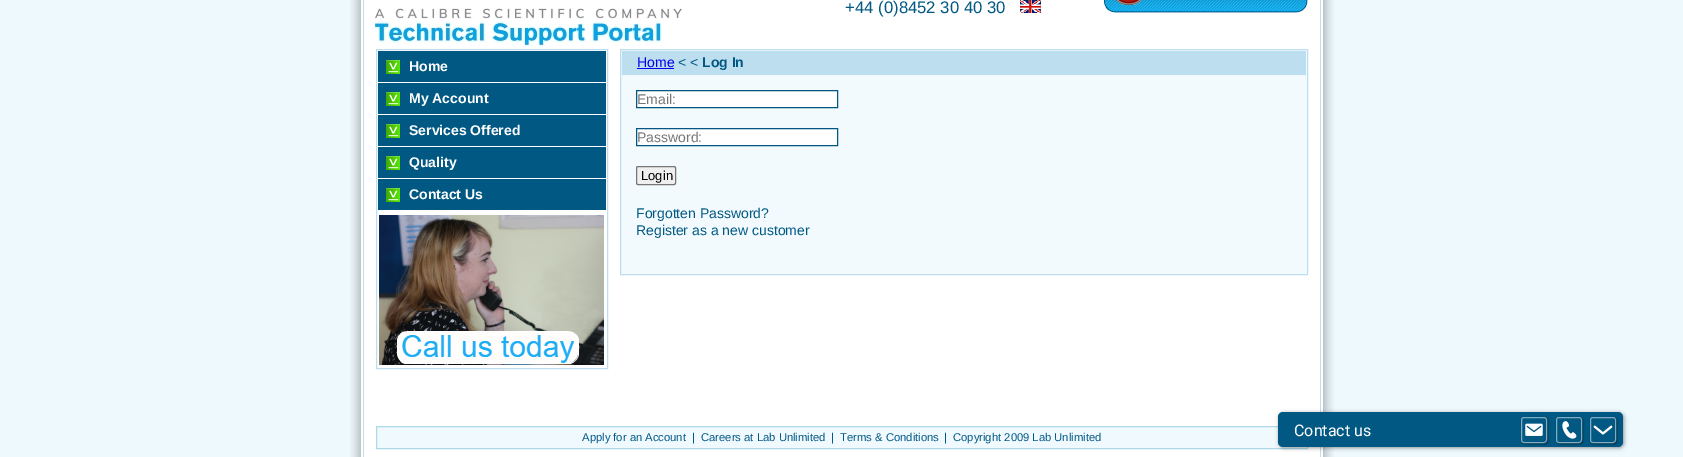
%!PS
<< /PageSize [1683 457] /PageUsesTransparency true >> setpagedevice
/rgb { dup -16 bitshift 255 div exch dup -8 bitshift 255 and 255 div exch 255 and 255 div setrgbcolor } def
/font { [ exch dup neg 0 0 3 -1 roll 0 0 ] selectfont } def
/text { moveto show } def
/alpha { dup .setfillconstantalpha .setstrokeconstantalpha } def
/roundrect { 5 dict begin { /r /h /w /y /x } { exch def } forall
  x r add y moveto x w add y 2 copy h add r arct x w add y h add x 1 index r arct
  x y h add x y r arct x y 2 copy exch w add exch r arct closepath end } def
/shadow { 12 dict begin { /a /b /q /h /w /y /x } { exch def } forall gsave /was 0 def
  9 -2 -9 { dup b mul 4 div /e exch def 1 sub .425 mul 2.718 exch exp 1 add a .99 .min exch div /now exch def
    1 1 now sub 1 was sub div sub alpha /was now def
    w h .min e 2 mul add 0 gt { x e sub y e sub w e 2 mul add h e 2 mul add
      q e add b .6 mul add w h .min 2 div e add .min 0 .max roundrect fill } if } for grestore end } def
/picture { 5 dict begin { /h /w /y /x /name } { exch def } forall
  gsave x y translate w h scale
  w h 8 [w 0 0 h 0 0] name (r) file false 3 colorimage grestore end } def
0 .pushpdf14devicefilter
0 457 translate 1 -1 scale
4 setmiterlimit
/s1 { /LiberationSans-Regular 16.75 font 16#005883 rgb } def
/s2 { /LiberationSans-Bold 14 font 16#FFFFFF rgb } def
/s3 { /LiberationSans-Regular 14 font 16#0000EE rgb } def
/s4 { /LiberationSans-Regular 14 font 16#005883 rgb } def
/s5 { /LiberationSans-Bold 14 font 16#005883 rgb } def
/s6 { /LiberationSans-Regular 14 font 16#757575 rgb } def
/s7 { /LiberationSans-Regular 13 font 16#000000 rgb } def
/s8 { /LiberationSans-Regular 11.25 font 16#005883 rgb } def
/s9 { /Roboto-Regular 16 font 16#FFFFFF rgb } def
16#EEF9FE rgb
0 0 1683 457 rectfill
(pic1.raw) 350 0 984 457 picture
16#FFFFFF rgb
363 0 958 457 rectfill
16#BCDEEF rgb
1320 0 1 416 rectfill
(pic2.raw) 374 8 308 39 picture
s1
(+44 \(0\)8452 30 40 30) 845 13 text
(pic3.raw) 1020 0 21 13 picture
(pic4.raw) 1104 0 204 13 picture
16#BCDEEF rgb
376.5 49.5 231 319 rectstroke
16#005883 rgb
378 51 228 31 rectfill
(pic5.raw) 386 60 14 14 picture
s2
(Home) 409 71 text
16#005883 rgb
378 83 228 31 rectfill
(pic5.raw) 386 92 14 14 picture
s2
(My Account) 409 103 text
16#005883 rgb
378 115 228 31 rectfill
(pic5.raw) 386 124 14 14 picture
s2
(Services Offered) 409 135 text
16#005883 rgb
378 147 228 31 rectfill
(pic5.raw) 386 156 14 14 picture
s2
(Quality) 409 167 text
16#005883 rgb
378 179 228 31 rectfill
(pic5.raw) 386 188 14 14 picture
s2
(Contact Us) 409 199 text
(pic6.raw) 379 215 225 150 picture
16#F2FAFD rgb
620.5 49.5 moveto 1307.5 49.5 lineto 1307.5 274.5 lineto 620.5 274.5 lineto closepath gsave fill grestore
16#BCDEEF rgb
stroke
622 51 684 24 rectfill
s3
(Home) 637 67 text
637 68 37 1 rectfill
s4
(< <) 678 67 text
s5
(Log In) 702 67 text
16#FFFFFF rgb
636.5 90.5 moveto 837.5 90.5 lineto 837.5 107.5 lineto 636.5 107.5 lineto closepath gsave fill grestore
16#005883 rgb
stroke
s6
(Email:) 637 104 text
16#FFFFFF rgb
636.5 128.5 moveto 837.5 128.5 lineto 837.5 145.5 lineto 636.5 145.5 lineto closepath gsave fill grestore
16#005883 rgb
stroke
s6
(Password:) 637 142 text
16#EFEFEF rgb
636.5 166.5 39 18 1.5 roundrect gsave fill grestore
16#767676 rgb
stroke
s7
(Login) 641 180 text
s4
(Forgotten Password?) 636 218 text
(Register as a new customer) 636 235 text
16#BCDEEF rgb
1320 447 1 10 rectfill
363 0 1 457 rectfill
16#F0F9FE rgb
376.5 426.5 moveto 1307.5 426.5 lineto 1307.5 448.5 lineto 376.5 448.5 lineto closepath gsave fill grestore
16#ACDAE9 rgb
stroke
s8
(Apply for an Account) 582 441 text
(|) 692 441 text
(Careers at Lab Unlimited) 701 441 text
(|) 831 441 text
(Terms & Conditions) 840 441 text
(|) 944 441 text
(Copyright 2009 Lab Unlimited) 953 441 text
16#000000 rgb
1279 413 345 35 5 2 0.4 shadow
16#005883 rgb
1278 412 345 35 5 roundrect fill
s9
(Contact us) 1294 436 text
gsave
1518 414 moveto 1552 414 lineto 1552 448 lineto 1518 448 lineto closepath 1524 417 moveto 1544 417 lineto 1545.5 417 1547 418.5 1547 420 curveto 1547 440 lineto 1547 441.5 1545.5 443 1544 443 curveto 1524 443 lineto 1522.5 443 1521 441.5 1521 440 curveto 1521 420 lineto 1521 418.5 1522.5 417 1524 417 curveto closepath eoclip newpath
16#000000 rgb
1522 418 26 26 3 1 0.5 shadow
grestore
0.5 alpha
1521.5 417.5 25 25 2.5 roundrect stroke
1 alpha
(pic7.raw) 1525 423 18 13 picture
gsave
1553 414 moveto 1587 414 lineto 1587 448 lineto 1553 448 lineto closepath 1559 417 moveto 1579 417 lineto 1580.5 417 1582 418.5 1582 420 curveto 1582 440 lineto 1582 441.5 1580.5 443 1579 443 curveto 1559 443 lineto 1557.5 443 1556 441.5 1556 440 curveto 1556 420 lineto 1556 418.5 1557.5 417 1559 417 curveto closepath eoclip newpath
16#000000 rgb
1557 418 26 26 3 1 0.5 shadow
grestore
0.5 alpha
1556.5 417.5 25 25 2.5 roundrect stroke
1 alpha
(pic8.raw) 1562 421 15 18 picture
gsave
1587 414 moveto 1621 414 lineto 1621 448 lineto 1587 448 lineto closepath 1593 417 moveto 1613 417 lineto 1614.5 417 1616 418.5 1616 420 curveto 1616 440 lineto 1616 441.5 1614.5 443 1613 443 curveto 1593 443 lineto 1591.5 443 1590 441.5 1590 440 curveto 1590 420 lineto 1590 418.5 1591.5 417 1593 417 curveto closepath eoclip newpath
16#000000 rgb
1591 418 26 26 3 1 0.5 shadow
grestore
0.5 alpha
1590.5 417.5 25 25 2.5 roundrect stroke
1 alpha
(pic9.raw) 1593 425 20 10 picture
.poppdf14devicefilter showpage
